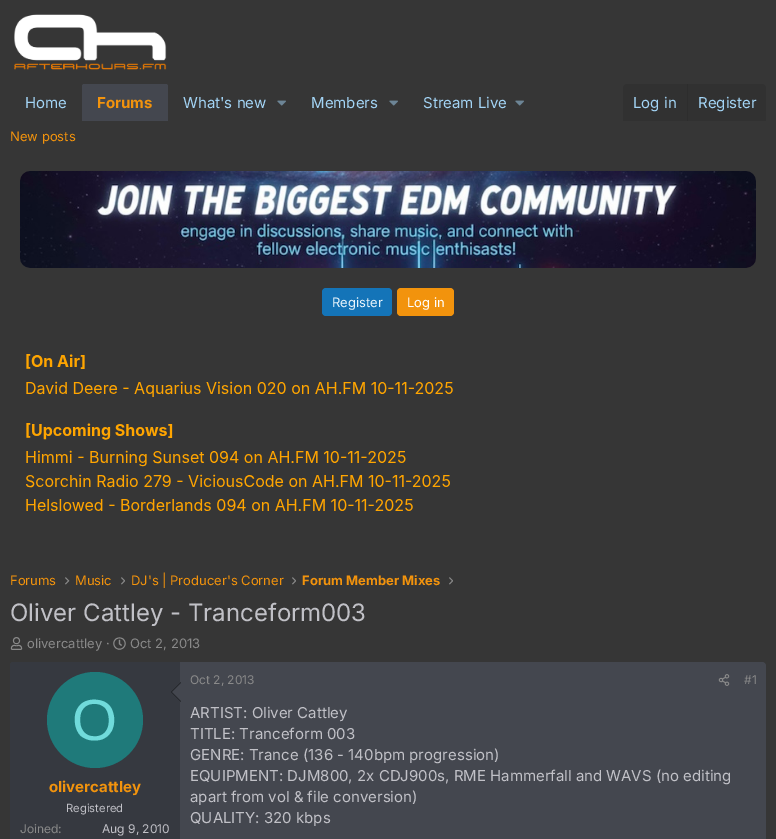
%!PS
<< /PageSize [776 839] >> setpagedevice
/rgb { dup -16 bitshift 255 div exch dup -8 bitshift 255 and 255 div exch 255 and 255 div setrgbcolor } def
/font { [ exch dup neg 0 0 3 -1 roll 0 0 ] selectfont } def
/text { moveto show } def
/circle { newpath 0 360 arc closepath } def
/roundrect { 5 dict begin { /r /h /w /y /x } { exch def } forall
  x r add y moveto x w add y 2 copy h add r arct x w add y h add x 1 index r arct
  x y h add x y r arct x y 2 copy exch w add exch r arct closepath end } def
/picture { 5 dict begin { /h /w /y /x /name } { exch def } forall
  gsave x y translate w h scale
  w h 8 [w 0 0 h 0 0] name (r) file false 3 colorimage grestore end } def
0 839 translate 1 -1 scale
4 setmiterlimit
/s1 { /Inter-Regular 15 font 16#A3D4F5 rgb } def
/s2 { /Inter-Bold 15 font 16#F2930D rgb } def
/s3 { /Inter-Regular 13 font 16#F2930D rgb } def
/s4 { /Inter-Regular 13 font 16#E8F4FC rgb } def
/s5 { /Inter-Regular 13 font 16#FFFFFF rgb } def
/s6 { /Inter-Bold 13 font 16#F2930D rgb } def
/s7 { /Inter-Regular 24 font 16#C1C1C7 rgb } def
/s8 { /Inter-Regular 13 font 16#8A8A8A rgb } def
/s9 { /LiberationSans-Regular 58 font 16#70DBDB rgb } def
/s10 { /Inter-Regular 11.25 font 16#C1C1C7 rgb } def
/s11 { /Inter-Regular 12 font 16#8A8A8A rgb } def
/s12 { /Inter-Regular 12 font 16#C1C1C7 rgb } def
/s13 { /Inter-Regular 15 font 16#C1C1C7 rgb } def
16#363636 rgb
0 0 776 839 rectfill
(pic1.raw) 14 14 153 56 picture
s1
(Home) 25 108 text
16#44474F rgb
84 84 moveto 166 84 lineto 167 84 168 85 168 86 curveto 168 121 lineto 82 121 lineto 82 86 lineto 82 85 83 84 84 84 curveto closepath fill
s2
(Forums) 97 108 text
s1
(What's new) 183 108 text
(pic2.raw) 277 100 9 6 picture
(Members) 311 108 text
(pic2.raw) 389 100 9 6 picture
(Stream Live) 423 108 text
(pic2.raw) 515 100 9 6 picture
16#313131 rgb
627 84 moveto 762 84 lineto 764 84 766 86 766 88 curveto 766 121 lineto 623 121 lineto 623 88 lineto 623 86 625 84 627 84 curveto closepath fill
s1
(Log in) 633 108 text
16#2D2D2D rgb
687 84 1 37 rectfill
s1
(Register) 698 108 text
s3
(New posts) 10 141 text
(pic3.raw) 20 171 736 97 picture
16#1474B8 rgb
322 288 70 28 4 roundrect fill
s4
(Register) 332 307 text
16#F2930D rgb
397 288 57 28 4 roundrect fill
s5
(Log in) 407 307 text
(pic4.raw) 26 354 427 158 picture
s3
(Forums) 10 585 text
(pic5.raw) 65 577 5 8 picture
(Music) 75 585 text
(pic6.raw) 121 577 4 8 picture
(DJ's | Producer's Corner) 131 585 text
(pic6.raw) 292 577 4 8 picture
s6
(Forum Member Mixes) 302 585 text
(pic6.raw) 449 577 4 8 picture
s7
(Oliver Cattley - Tranceform003) 10 621 text
(pic7.raw) 10 637 13 13 picture
s8
(olivercattley ·) 27 648 text
(pic8.raw) 113 637 13 13 picture
(Oct 2, 2013) 130 648 text
16#44474F rgb
10 662 756 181 4 roundrect fill
16#363940 rgb
13 662 moveto 180 662 lineto 180 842 lineto 13 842 lineto 11.5 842 10 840.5 10 839 curveto 10 665 lineto 10 663.5 11.5 662 13 662 curveto closepath fill
16#1E2023 rgb
181 682 moveto 181 702 lineto 171 692 lineto closepath fill
16#44474F rgb
181 683 moveto 181 701 lineto 172 692 lineto closepath fill
16#1F7A7A rgb
95 720 48 circle fill
s9
(O) 72 740 text
s2
(olivercattley) 49 792 text
s10
(Registered) 66 812 text
s11
(Joined:) 20 833 text
s12
(Aug 9, 2010) 102 833 text
s11
(Oct 2, 2013) 190 684 text
(pic9.raw) 718 674 12 12 picture
(#1) 744 684 text
s13
(ARTIST: Oliver Cattley) 190 718 text
(TITLE: Tranceform 003) 190 739 text
(GENRE: Trance \(136 - 140bpm progression\)) 190 760 text
(EQUIPMENT: DJM800, 2x CDJ900s, RME Hammerfall and WAVS \(no editing) 190 781 text
(apart from vol & file conversion\)) 190 802 text
(QUALITY: 320 kbps) 190 823 text
showpage
